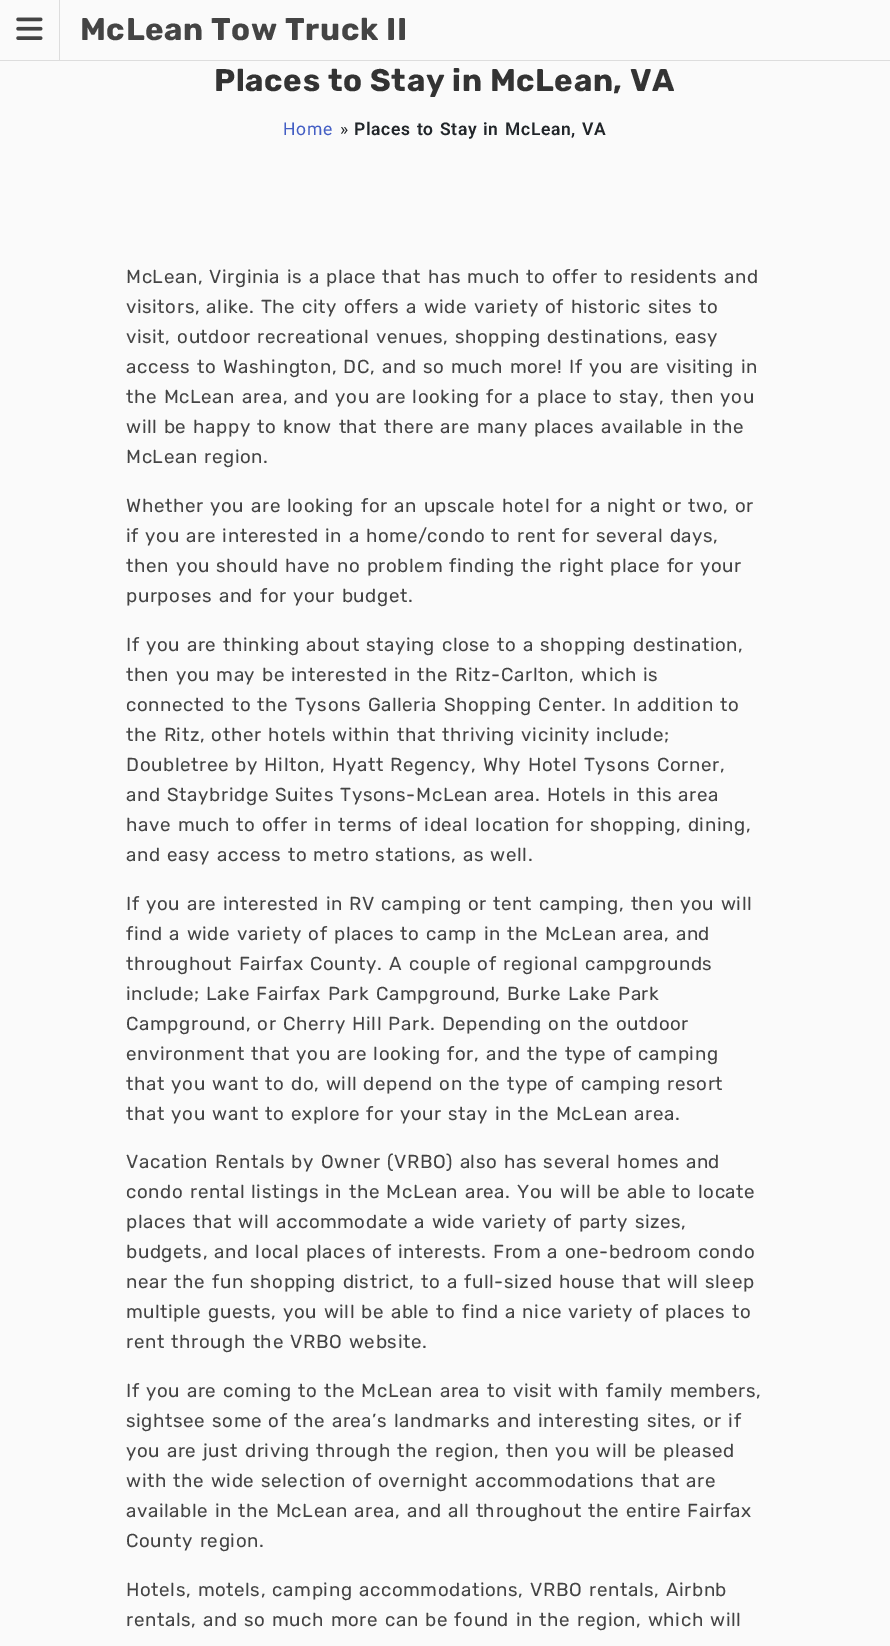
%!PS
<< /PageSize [890 1646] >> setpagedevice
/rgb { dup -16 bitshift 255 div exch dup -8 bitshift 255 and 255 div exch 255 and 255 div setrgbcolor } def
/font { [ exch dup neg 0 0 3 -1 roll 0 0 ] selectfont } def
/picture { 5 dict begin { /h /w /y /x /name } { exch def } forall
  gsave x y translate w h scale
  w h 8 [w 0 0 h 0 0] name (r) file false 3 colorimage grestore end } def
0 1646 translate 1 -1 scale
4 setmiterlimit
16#FAFAFA rgb
0 0 890 1646 rectfill
16#DDDDDD rgb
0 60 890 1 rectfill
59 0 1 60 rectfill
(pic1.raw) 16 17 27 23 picture
/Rubik-Bold 31.25 font
16#444444 rgb
80 40 moveto 0.62 0 (McLean Tow Truck II) ashow
16#333333 rgb
214 91 moveto 0.62 0 (Places to Stay in McLean, VA) ashow
/Roboto-Regular 17.5 font
16#435EC4 rgb
283 135 moveto 0.62 0 (Home) ashow
16#212529 rgb
340 135 moveto 0.62 0 (») ashow
/Roboto-SemiBold 17.5 font
354 135 moveto 1.25 0 32 0.62 0 (Places to Stay in McLean, VA) awidthshow
/Rubik-Regular 18.75 font
16#444444 rgb
126 283 moveto 1.25 0 32 0.62 0 (McLean, Virginia is a place that has much to offer to residents and) awidthshow
126 313 moveto 1.25 0 32 0.62 0 (visitors, alike. The city offers a wide variety of historic sites to) awidthshow
126 343 moveto 1.25 0 32 0.62 0 (visit, outdoor recreational venues, shopping destinations, easy) awidthshow
126 373 moveto 1.25 0 32 0.62 0 (access to Washington, DC, and so much more! If you are visiting in) awidthshow
126 403 moveto 1.25 0 32 0.62 0 (the McLean area, and you are looking for a place to stay, then you) awidthshow
126 433 moveto 1.25 0 32 0.62 0 (will be happy to know that there are many places available in the) awidthshow
126 463 moveto 1.25 0 32 0.62 0 (McLean region.) awidthshow
126 512 moveto 1.25 0 32 0.62 0 (Whether you are looking for an upscale hotel for a night or two, or) awidthshow
126 542 moveto 1.25 0 32 0.62 0 (if you are interested in a home/condo to rent for several days,) awidthshow
126 572 moveto 1.25 0 32 0.62 0 (then you should have no problem finding the right place for your) awidthshow
126 602 moveto 1.25 0 32 0.62 0 (purposes and for your budget.) awidthshow
126 651 moveto 1.25 0 32 0.62 0 (If you are thinking about staying close to a shopping destination,) awidthshow
126 681 moveto 1.25 0 32 0.62 0 (then you may be interested in the Ritz-Carlton, which is) awidthshow
126 711 moveto 1.25 0 32 0.62 0 (connected to the Tysons Galleria Shopping Center. In addition to) awidthshow
126 741 moveto 1.25 0 32 0.62 0 (the Ritz, other hotels within that thriving vicinity include;) awidthshow
126 771 moveto 1.25 0 32 0.62 0 (Doubletree by Hilton, Hyatt Regency, Why Hotel Tysons Corner,) awidthshow
126 801 moveto 1.25 0 32 0.62 0 (and Staybridge Suites Tysons-McLean area. Hotels in this area) awidthshow
126 831 moveto 1.25 0 32 0.62 0 (have much to offer in terms of ideal location for shopping, dining,) awidthshow
126 861 moveto 1.25 0 32 0.62 0 (and easy access to metro stations, as well.) awidthshow
126 910 moveto 1.25 0 32 0.62 0 (If you are interested in RV camping or tent camping, then you will) awidthshow
126 940 moveto 1.25 0 32 0.62 0 (find a wide variety of places to camp in the McLean area, and) awidthshow
126 970 moveto 1.25 0 32 0.62 0 (throughout Fairfax County. A couple of regional campgrounds) awidthshow
126 1000 moveto 1.25 0 32 0.62 0 (include; Lake Fairfax Park Campground, Burke Lake Park) awidthshow
126 1030 moveto 1.25 0 32 0.62 0 (Campground, or Cherry Hill Park. Depending on the outdoor) awidthshow
126 1060 moveto 1.25 0 32 0.62 0 (environment that you are looking for, and the type of camping) awidthshow
126 1090 moveto 1.25 0 32 0.62 0 (that you want to do, will depend on the type of camping resort) awidthshow
126 1120 moveto 1.25 0 32 0.62 0 (that you want to explore for your stay in the McLean area.) awidthshow
126 1168 moveto 1.25 0 32 0.62 0 (Vacation Rentals by Owner \(VRBO\) also has several homes and) awidthshow
126 1198 moveto 1.25 0 32 0.62 0 (condo rental listings in the McLean area. You will be able to locate) awidthshow
126 1228 moveto 1.25 0 32 0.62 0 (places that will accommodate a wide variety of party sizes,) awidthshow
126 1258 moveto 1.25 0 32 0.62 0 (budgets, and local places of interests. From a one-bedroom condo) awidthshow
126 1288 moveto 1.25 0 32 0.62 0 (near the fun shopping district, to a full-sized house that will sleep) awidthshow
126 1318 moveto 1.25 0 32 0.62 0 (multiple guests, you will be able to find a nice variety of places to) awidthshow
126 1348 moveto 1.25 0 32 0.62 0 (rent through the VRBO website.) awidthshow
126 1397 moveto 1.25 0 32 0.62 0 (If you are coming to the McLean area to visit with family members,) awidthshow
126 1427 moveto 1.25 0 32 0.62 0 (sightsee some of the area’s landmarks and interesting sites, or if) awidthshow
126 1457 moveto 1.25 0 32 0.62 0 (you are just driving through the region, then you will be pleased) awidthshow
126 1487 moveto 1.25 0 32 0.62 0 (with the wide selection of overnight accommodations that are) awidthshow
126 1517 moveto 1.25 0 32 0.62 0 (available in the McLean area, and all throughout the entire Fairfax) awidthshow
126 1547 moveto 1.25 0 32 0.62 0 (County region.) awidthshow
126 1596 moveto 1.25 0 32 0.62 0 (Hotels, motels, camping accommodations, VRBO rentals, Airbnb) awidthshow
126 1626 moveto 1.25 0 32 0.62 0 (rentals, and so much more can be found in the region, which will) awidthshow
showpage
